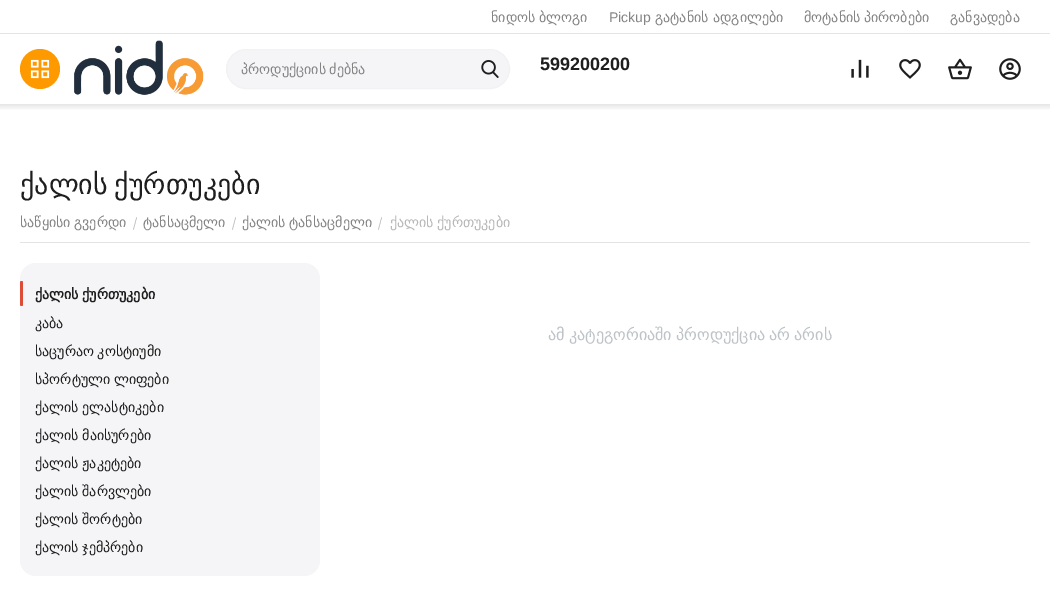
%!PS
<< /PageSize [1058 608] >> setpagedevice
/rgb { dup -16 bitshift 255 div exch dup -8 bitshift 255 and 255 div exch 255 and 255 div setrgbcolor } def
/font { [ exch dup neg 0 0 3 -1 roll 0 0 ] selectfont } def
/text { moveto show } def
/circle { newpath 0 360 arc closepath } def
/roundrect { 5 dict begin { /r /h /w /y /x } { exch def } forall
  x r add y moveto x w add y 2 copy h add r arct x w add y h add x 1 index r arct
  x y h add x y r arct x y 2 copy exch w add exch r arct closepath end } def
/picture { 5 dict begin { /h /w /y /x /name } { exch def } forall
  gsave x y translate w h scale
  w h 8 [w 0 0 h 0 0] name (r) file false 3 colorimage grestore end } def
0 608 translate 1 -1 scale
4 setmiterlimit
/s1 { /LiberationSans-Regular 14 font 16#848484 rgb } def
/s2 { /DejaVuSans-Regular 14 font 16#848484 rgb } def
/s3 { /LiberationSans-Bold 18 font 16#1E1E1E rgb } def
/s4 { /NotoSerif-Regular 14 font 16#B7B7B7 rgb } def
/s5 { /DejaVuSans-Regular 14 font 16#1E1E1E rgb } def
16#FFFFFF rgb
0 0 1058 608 rectfill
16#E4E4E4 rgb
0 33 1050 1 rectfill
/DejaVuSans-Regular 14 font
16#848484 rgb
491 22 moveto -1 0 32 (ნიდოს ბლოგი) widthshow
s1
(Pickup) 609 22 text
s2
(გატანის ადგილები) 655 22 text
804 22 moveto -1 0 32 (მოტანის პირობები) widthshow
(განვადება) 950 22 text
16#FF9900 rgb
40 69 20 circle fill
(pic1.raw) 30 59 20 20 picture
(pic2.raw) 74 40 130 55 picture
16#F5F5F7 rgb
226.5 49.5 283 39 19.5 roundrect gsave fill grestore
16#F2F2F5 rgb
stroke
16#848484 rgb
241 74 moveto -1 0 32 (პროდუქციის ძებნა) widthshow
(pic3.raw) 481 60 18 18 picture
s3
(599200200) 540 70 text
(pic4.raw) 851 59 18 19 picture
(pic5.raw) 899 59 22 20 picture
(pic6.raw) 948 58 24 22 picture
(pic7.raw) 999 58 22 22 picture
gsave 0 104 moveto 1050 104 lineto 1050 110 lineto 0 110 lineto closepath clip newpath
<< /ShadingType 2 /ColorSpace /DeviceRGB /Coords [525 104 525 111] /Extend [true true] /Function << /FunctionType 2 /Domain [0 1] /C0 [0.902 0.902 0.902] /C1 [1 1 1] /N 1 >> >> shfill grestore
/DejaVuSans-Regular 28 font
20 194 moveto -2 0 32 (ქალის ქურთუკები) widthshow
16#E4E4E4 rgb
20 242 1010 1 rectfill
/DejaVuSans-Regular 14 font
16#848484 rgb
20 227 moveto -1 0 32 (საწყისი გვერდი) widthshow
s4
(/) 133 228 text
s2
(ტანსაცმელი) 143 227 text
s4
(/) 232 228 text
/DejaVuSans-Regular 14 font
16#848484 rgb
242 227 moveto -1 0 32 (ქალის ტანსაცმელი) widthshow
s4
(/) 378 228 text
/DejaVuSans-Regular 14 font
390 227 moveto -1 0 32 (ქალის ქურთუკები) widthshow
16#F5F5F7 rgb
20 263 300 313 16 roundrect fill
16#DD4B39 rgb
20 281 3 25 1.5 roundrect fill
/DejaVuSans-Bold 14 font
16#1E1E1E rgb
35 299 moveto -1 0 32 (ქალის ქურთუკები) widthshow
s5
(კაბა) 35 328 text
35 356 moveto -1 0 32 (საცურაო კოსტიუმი) widthshow
35 384 moveto -1 0 32 (სპორტული ლიფები) widthshow
35 412 moveto -1 0 32 (ქალის ელასტიკები) widthshow
35 440 moveto -1 0 32 (ქალის მაისურები) widthshow
35 468 moveto -1 0 32 (ქალის ჟაკეტები) widthshow
35 496 moveto -1 0 32 (ქალის შარვლები) widthshow
35 524 moveto -1 0 32 (ქალის შორტები) widthshow
35 552 moveto -1 0 32 (ქალის ჯემპრები) widthshow
/DejaVuSans-Regular 16.1 font
16#BDC3C7 rgb
548 340 moveto -1 0 32 (ამ კატეგორიაში პროდუქცია არ არის) widthshow
showpage
